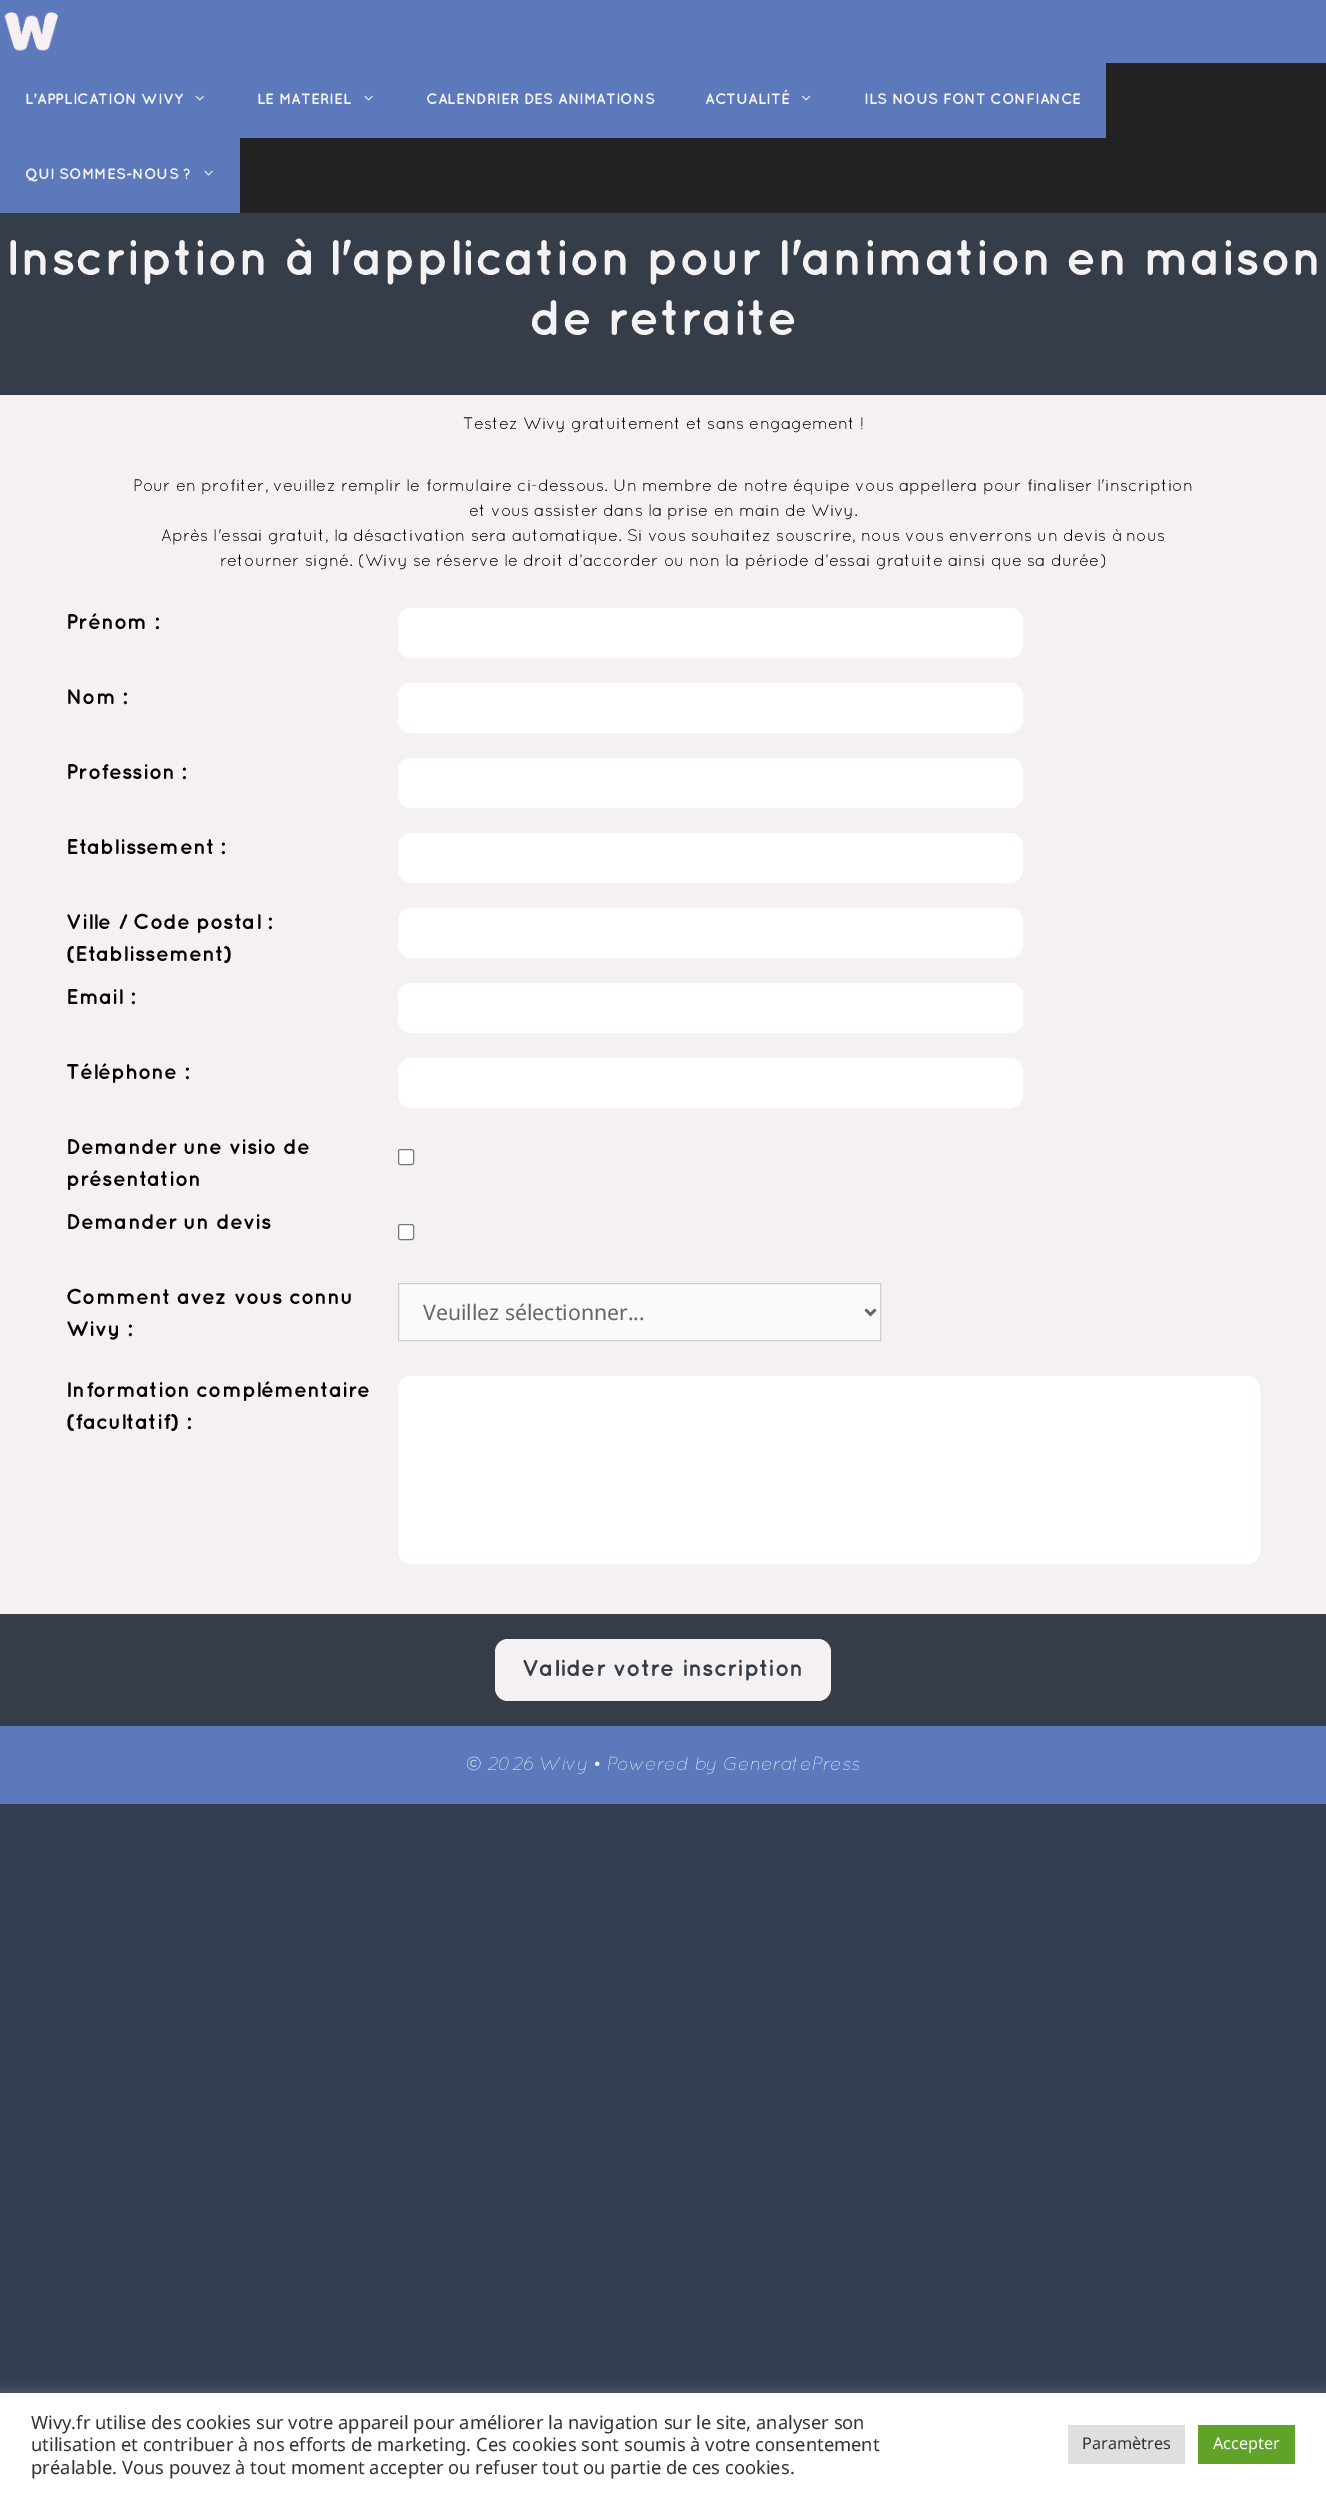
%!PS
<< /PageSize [1326 2494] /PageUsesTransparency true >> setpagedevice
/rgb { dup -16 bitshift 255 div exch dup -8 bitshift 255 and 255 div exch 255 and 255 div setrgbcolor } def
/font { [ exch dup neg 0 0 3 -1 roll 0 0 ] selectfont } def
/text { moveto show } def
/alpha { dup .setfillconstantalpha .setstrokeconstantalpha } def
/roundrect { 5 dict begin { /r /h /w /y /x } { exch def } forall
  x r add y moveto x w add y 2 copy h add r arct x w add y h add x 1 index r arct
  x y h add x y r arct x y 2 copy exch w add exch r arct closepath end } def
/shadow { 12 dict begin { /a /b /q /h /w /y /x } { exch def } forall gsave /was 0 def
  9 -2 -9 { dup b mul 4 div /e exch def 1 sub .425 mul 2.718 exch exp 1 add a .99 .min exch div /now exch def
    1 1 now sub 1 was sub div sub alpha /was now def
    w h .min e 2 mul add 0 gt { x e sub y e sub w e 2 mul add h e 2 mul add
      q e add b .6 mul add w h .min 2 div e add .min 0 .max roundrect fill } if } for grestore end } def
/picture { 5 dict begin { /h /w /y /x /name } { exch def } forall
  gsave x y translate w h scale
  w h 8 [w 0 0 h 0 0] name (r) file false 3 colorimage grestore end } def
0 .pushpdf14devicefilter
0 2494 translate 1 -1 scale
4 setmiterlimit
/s1 { /Quicksand-Bold 15 font 16#F4F2F2 rgb } def
/s2 { /Quicksand-Bold 50 font 16#F4F2F2 rgb } def
/s3 { /Quicksand-Regular 16.67 font 16#000000 rgb } def
/s4 { /Quicksand-Bold 21.25 font 16#000000 rgb } def
/s5 { /NotoSans-Regular 21.25 font 16#666666 rgb } def
/s6 { /Quicksand-Bold 23.25 font 16#353D48 rgb } def
/s7 { /Quicksand-LightItalic 18.75 font 16#F4F2F2 rgb } def
/s8 { /LiberationSerif-Regular 18.75 font 16#F4F2F2 rgb } def
/s9 { /Quicksand-LightItalic 18.75 font 16#FFFFFF rgb } def
/s10 { /NotoSans-Regular 18.35 font 16#333333 rgb } def
/s11 { /NotoSans-Regular 16.25 font 16#333333 rgb } def
/s12 { /NotoSans-Regular 16.25 font 16#FFFFFF rgb } def
16#333E53 rgb
0 0 1326 2494 rectfill
16#5C79BB rgb
0 0 1326 63 rectfill
(pic1.raw) 4 12 54 39 picture
16#222222 rgb
240 63 1086 150 rectfill
16#5C79BB rgb
0 63 1106 75 rectfill
s1
(L’APPLICATION WIVY) 25 104 text
(pic2.raw) 195 95 9 6 picture
(LE MATERIEL) 257 104 text
(pic3.raw) 364 95 9 6 picture
(CALENDRIER DES ANIMATIONS) 426 104 text
(ACTUALITÉ) 705 104 text
(pic4.raw) 802 95 9 6 picture
(ILS NOUS FONT CONFIANCE) 864 104 text
16#5C79BB rgb
0 138 240 75 rectfill
s1
(QUI SOMMES-NOUS ?) 25 179 text
(pic3.raw) 204 170 9 6 picture
16#353D48 rgb
0 213 1326 182 rectfill
s2
(Inscription à l'application pour l'animation en maison) 5 275 text
(de retraite) 529 335 text
16#F5F1F2 rgb
0 395 1326 1219 rectfill
s3
(Testez Wivy gratuitement et sans engagement !) 463 429 text
(Pour en profiter, veuillez remplir le formulaire ci-dessous. Un membre de notre équipe vous appellera pour finaliser l'inscription) 133 491 text
(et vous assister dans la prise en main de Wivy.) 469 516 text
(Après l'essai gratuit, la désactivation sera automatique. Si vous souhaitez souscrire, nous vous enverrons un devis à nous) 161 541 text
(retourner signé. \(Wivy se réserve le droit d’accorder ou non la période d’essai gratuite ainsi que sa durée\)) 220 566 text
s4
(Prénom :) 66 629 text
16#FFFFFF rgb
398.5 608.5 624 49 12.5 roundrect gsave fill grestore
stroke
s4
(Nom :) 66 704 text
16#FFFFFF rgb
398.5 683.5 624 49 12.5 roundrect gsave fill grestore
stroke
s4
(Profession :) 66 779 text
16#FFFFFF rgb
398.5 758.5 624 49 12.5 roundrect gsave fill grestore
stroke
s4
(Etablissement :) 66 854 text
16#FFFFFF rgb
398.5 833.5 624 49 12.5 roundrect gsave fill grestore
stroke
s4
(Ville / Code postal :) 66 929 text
(\(Etablissement\)) 66 961 text
16#FFFFFF rgb
398.5 908.5 624 49 12.5 roundrect gsave fill grestore
stroke
s4
(Email :) 66 1004 text
16#FFFFFF rgb
398.5 983.5 624 49 12.5 roundrect gsave fill grestore
stroke
s4
(Téléphone :) 66 1079 text
16#FFFFFF rgb
398.5 1058.5 624 49 12.5 roundrect gsave fill grestore
stroke
s4
(Demander une visio de) 66 1154 text
(présentation) 66 1186 text
16#FFFFFF rgb
398.5 1149.5 15 15 2 roundrect gsave fill grestore
16#767676 rgb
stroke
s4
(Demander un devis) 66 1229 text
16#FFFFFF rgb
398.5 1224.5 15 15 2 roundrect gsave fill grestore
16#767676 rgb
stroke
s4
(Comment avez vous connu) 66 1304 text
(Wivy :) 66 1336 text
16#FAFAFA rgb
398.5 1283.5 moveto 880.5 1283.5 lineto 880.5 1340.5 lineto 398.5 1340.5 lineto closepath gsave fill grestore
16#CCCCCC rgb
stroke
16#666666 rgb
2.5 setlinewidth
865.5 1309.5 moveto 870.5 1314.5 lineto 875.5 1309.5 lineto stroke
s5
(Veuillez sélectionner...) 423 1320 text
s4
(Information complémentaire) 66 1397 text
(\(facultatif\) :) 66 1429 text
16#FFFFFF rgb
398.5 1376.5 861 187 12.5 roundrect gsave fill grestore
1 setlinewidth
stroke
16#353D48 rgb
0 1614 1326 112 rectfill
16#F5F1F2 rgb
495 1639 336 62 13 roundrect fill
s6
(Valider votre inscription) 522 1676 text
16#5C79BB rgb
0 1726 1326 78 rectfill
s7
(© 2026 Wivy) 466 1770 text
s8
(•) 594 1770 text
s7
(Powered by) 606 1770 text
s9
(GeneratePress) 723 1770 text
16#ACABAB rgb
0 2391 1326 103 0 6 0.3 shadow
16#FFFFFF rgb
0 2393 1326 101 rectfill
s10
(Wivy.fr utilise des cookies sur votre appareil pour améliorer la navigation sur le site, analyser son) 31 2429 text
(utilisation et contribuer à nos efforts de marketing. Ces cookies sont soumis à votre consentement) 31 2451 text
(préalable. Vous pouvez à tout moment accepter ou refuser tout ou partie de ces cookies.) 31 2474 text
16#DEDFE0 rgb
1068 2425 117 39 rectfill
s11
(Paramètres) 1082 2449 text
16#61A229 rgb
1198 2425 97 39 rectfill
s12
(Accepter) 1213 2449 text
.poppdf14devicefilter showpage
